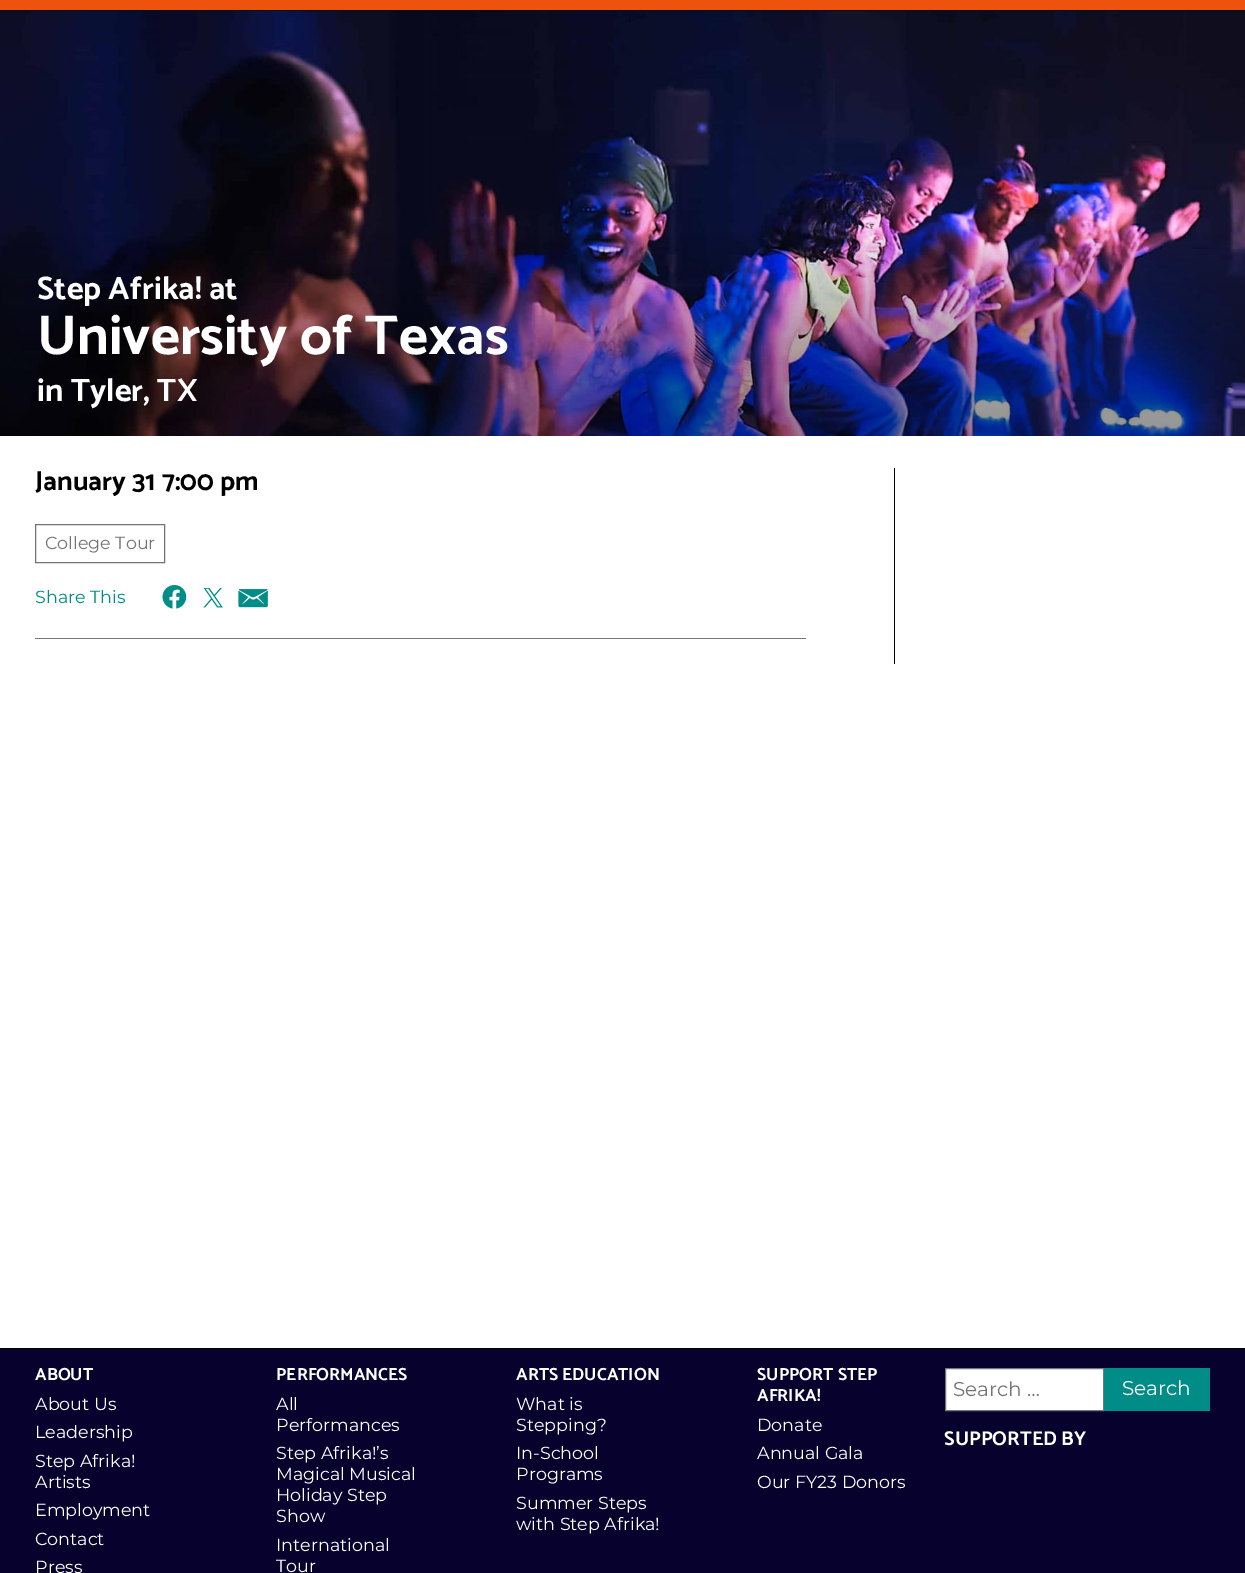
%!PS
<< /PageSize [1245 1573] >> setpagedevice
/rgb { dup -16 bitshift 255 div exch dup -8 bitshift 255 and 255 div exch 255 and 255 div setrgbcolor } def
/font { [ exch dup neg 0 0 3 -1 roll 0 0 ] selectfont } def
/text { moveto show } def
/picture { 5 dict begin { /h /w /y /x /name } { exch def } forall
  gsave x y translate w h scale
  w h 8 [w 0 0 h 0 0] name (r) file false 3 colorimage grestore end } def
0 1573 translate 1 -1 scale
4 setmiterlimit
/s1 { /Catamaran-Thin 32.5 font 16#FFFFFF rgb } def
/s2 { /Catamaran-Thin 56.25 font 16#FFFFFF rgb } def
/s3 { /Catamaran-Thin 27.5 font 16#000000 rgb } def
/s4 { /Montserrat-Regular 17.5 font 16#757575 rgb } def
/s5 { /Montserrat-Regular 17.5 font 16#018D87 rgb } def
/s6 { /Catamaran-Thin 17.5 font 16#FFFFFF rgb } def
/s7 { /Montserrat-Regular 17.5 font 16#FFFFFF rgb } def
/s8 { /Montserrat-Regular 20 font 16#757575 rgb } def
/s9 { /Montserrat-Regular 20 font 16#FFFFFF rgb } def
/s10 { /Catamaran-Thin 20 font 16#FFFFFF rgb } def
16#FFFFFF rgb
0 0 1245 1573 rectfill
16#ED530C rgb
0 0 1245 10 rectfill
16#000000 rgb
0 10 1245 1 rectfill
(pic1.raw) 0 11 1245 425 picture
s1
(Step Afrika! at) 37 299 text
s2
(University of Texas) 37 354 text
s1
(in Tyler, TX) 37 401 text
16#74767B rgb
35 638 771 1 rectfill
s3
(January 31 7:00 pm) 35 490 text
16#727376 rgb
35.5 524.5 129 38 rectstroke
s4
(College Tour) 45 549 text
s5
(Share This) 35 603 text
(pic2.raw) 162 585 25 24 picture
(pic3.raw) 203 588 20 20 picture
(pic4.raw) 238 589 30 19 picture
16#000000 rgb
894 468 1 196 rectfill
16#07012E rgb
0 1349 1245 224 rectfill
16#000000 rgb
0 1348 1245 1 rectfill
s6
(ABOUT) 35 1380 text
s7
(About Us) 35 1410 text
(Leadership) 35 1438 text
(Step Afrika!) 35 1467 text
(Artists) 35 1488 text
(Employment) 35 1516 text
(Contact) 35 1545 text
(Press) 35 1573 text
s6
(PERFORMANCES) 276 1380 text
s7
(All) 276 1410 text
(Performances) 276 1431 text
(Step Afrika!’s) 276 1459 text
(Magical Musical) 276 1480 text
(Holiday Step) 276 1501 text
(Show) 276 1522 text
(International) 276 1551 text
(Tour) 276 1572 text
s6
(ARTS EDUCATION) 516 1380 text
s7
(What is) 516 1410 text
(Stepping?) 516 1431 text
(In-School) 516 1459 text
(Programs) 516 1480 text
(Summer Steps) 516 1509 text
(with Step Afrika!) 516 1530 text
s6
(SUPPORT STEP) 757 1380 text
(AFRIKA!) 757 1401 text
s7
(Donate) 757 1431 text
(Annual Gala) 757 1459 text
(Our FY23 Donors) 757 1488 text
945.5 1368.5 moveto 1103.5 1368.5 lineto 1103.5 1410.5 lineto 945.5 1410.5 lineto closepath gsave fill grestore
16#74767B rgb
stroke
s8
(Search …) 953 1396 text
16#018D87 rgb
1104 1368 106 43 rectfill
s9
(Search) 1122 1395 text
s10
(SUPPORTED BY) 944 1445 text
showpage
